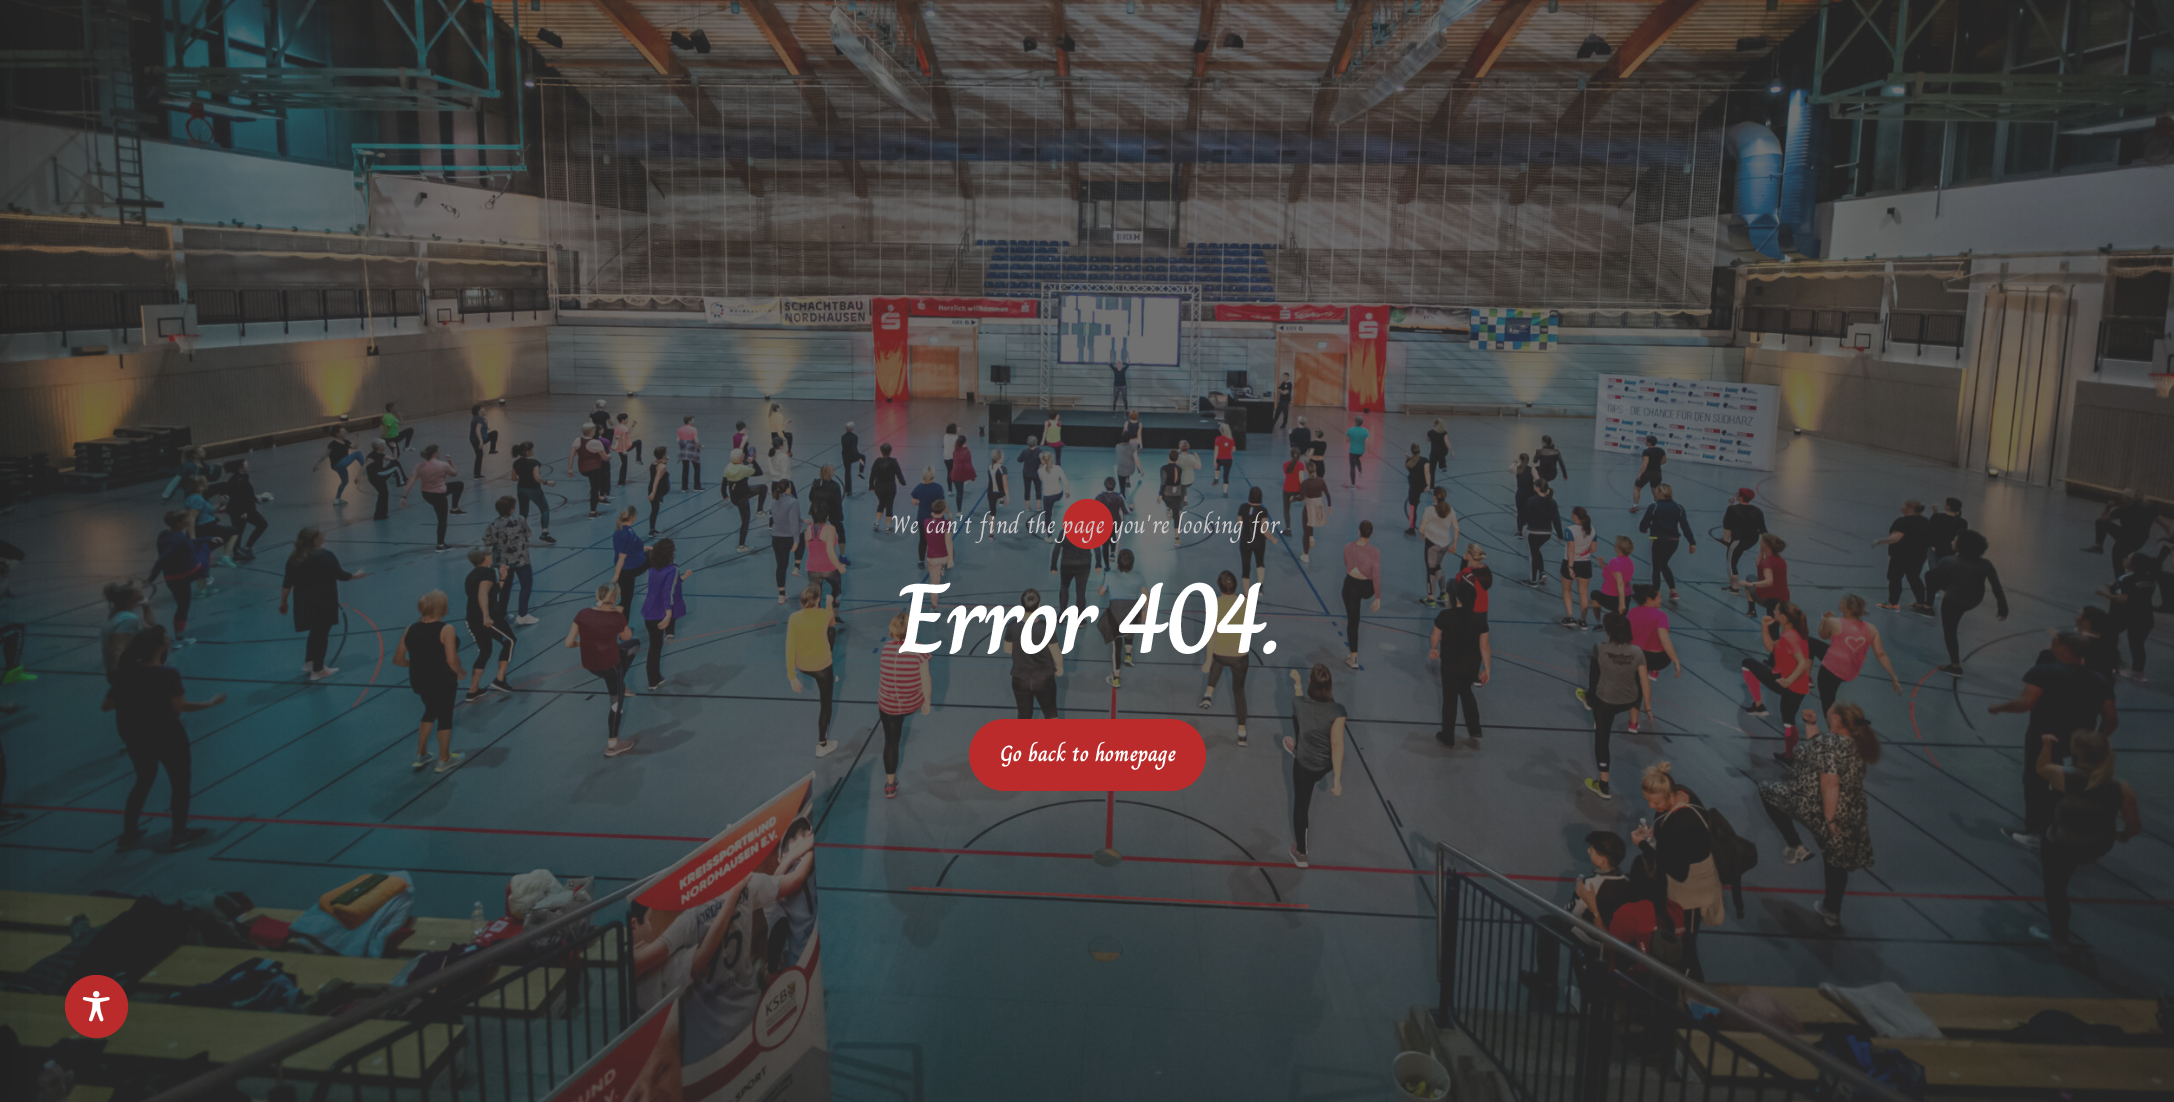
%!PS
<< /PageSize [2174 1102] /PageUsesTransparency true >> setpagedevice
/rgb { dup -16 bitshift 255 div exch dup -8 bitshift 255 and 255 div exch 255 and 255 div setrgbcolor } def
/font { [ exch dup neg 0 0 3 -1 roll 0 0 ] selectfont } def
/text { moveto show } def
/alpha { dup .setfillconstantalpha .setstrokeconstantalpha } def
/circle { newpath 0 360 arc closepath } def
/roundrect { 5 dict begin { /r /h /w /y /x } { exch def } forall
  x r add y moveto x w add y 2 copy h add r arct x w add y h add x 1 index r arct
  x y h add x y r arct x y 2 copy exch w add exch r arct closepath end } def
/shadow { 12 dict begin { /a /b /q /h /w /y /x } { exch def } forall gsave /was 0 def
  9 -2 -9 { dup b mul 4 div /e exch def 1 sub .425 mul 2.718 exch exp 1 add a .99 .min exch div /now exch def
    1 1 now sub 1 was sub div sub alpha /was now def
    w h .min e 2 mul add 0 gt { x e sub y e sub w e 2 mul add h e 2 mul add
      q e add b .6 mul add w h .min 2 div e add .min 0 .max roundrect fill } if } for grestore end } def
/picture { 5 dict begin { /h /w /y /x /name } { exch def } forall
  gsave x y translate w h scale
  w h 8 [w 0 0 h 0 0] name (r) file false 3 colorimage grestore end } def
0 .pushpdf14devicefilter
0 1102 translate 1 -1 scale
4 setmiterlimit
/s1 { /Charm-Regular 25 font 16#CDC9CB rgb } def
/s2 { /Charm-Bold 22 font 16#FFFFFF rgb } def
16#FFFFFF rgb
0 0 2174 1102 rectfill
(pic1.raw) 0 0 2174 1102 picture
16#BC2B2B rgb
96.5 1006.5 31.5 circle fill
(pic2.raw) 82 991 28 31 picture
16#000000 rgb
-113 13 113 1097 0 37.5 0.2 shadow
16#BC2B2B rgb
1088 524 25 circle fill
s1
(We can't find the page you're looking for.) 891 533 text
/Charm-Bold 100 font
16#FFFFFF rgb
896 653 moveto -3 0 (Error 404.) ashow
16#BC2B2B rgb
969 719 237 72 36 roundrect fill
s2
(Go back to homepage) 1000 761 text
.poppdf14devicefilter showpage
